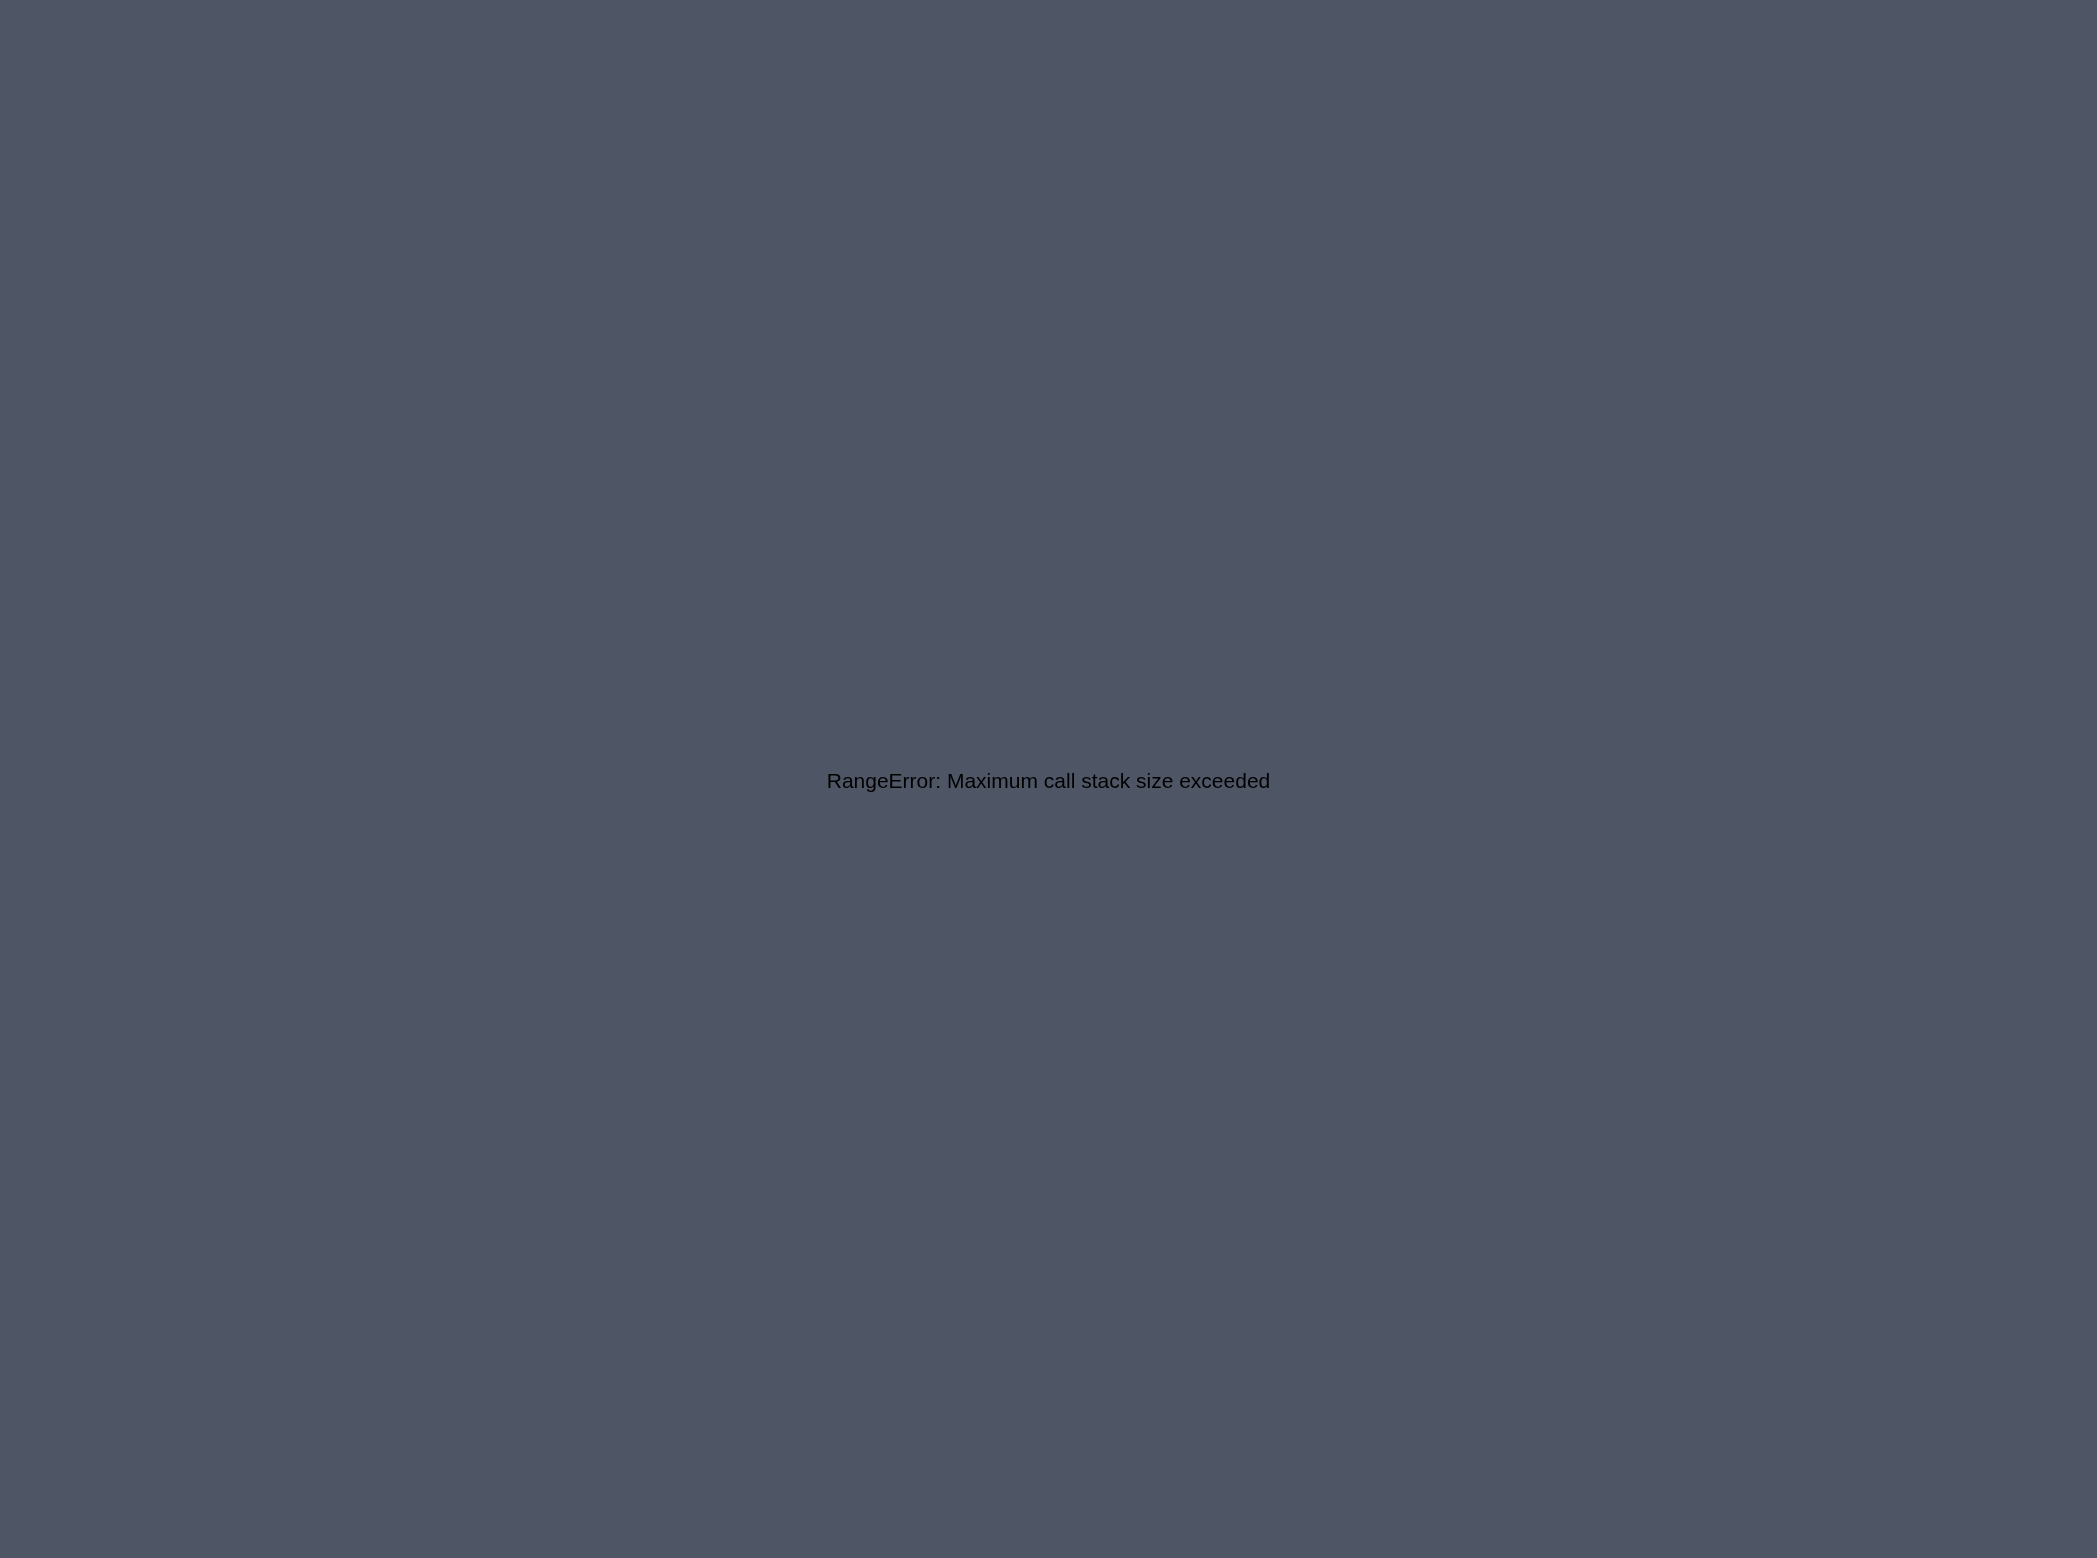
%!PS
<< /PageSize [2097 1558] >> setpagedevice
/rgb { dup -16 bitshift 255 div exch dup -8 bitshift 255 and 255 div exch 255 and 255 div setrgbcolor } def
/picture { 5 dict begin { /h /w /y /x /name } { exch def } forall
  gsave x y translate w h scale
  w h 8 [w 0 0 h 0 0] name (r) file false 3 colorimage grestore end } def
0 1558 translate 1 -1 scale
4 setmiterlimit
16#4E5565 rgb
0 0 2097 1558 rectfill
(pic1.raw) 828 773 441 19 picture
showpage
